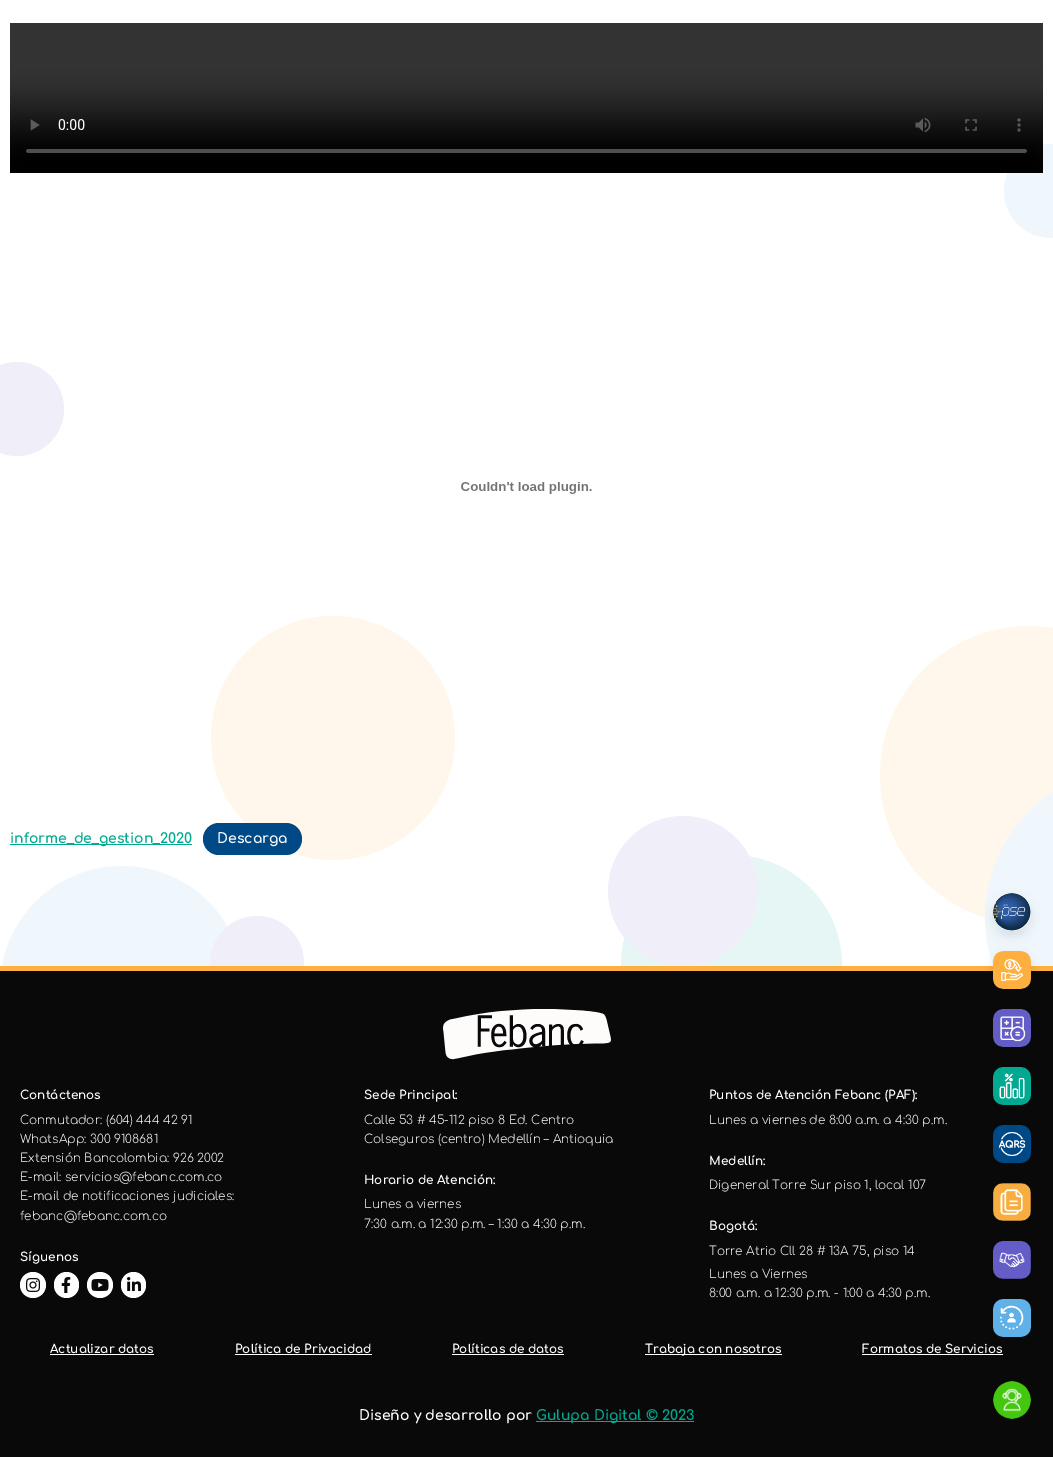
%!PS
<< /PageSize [1053 1457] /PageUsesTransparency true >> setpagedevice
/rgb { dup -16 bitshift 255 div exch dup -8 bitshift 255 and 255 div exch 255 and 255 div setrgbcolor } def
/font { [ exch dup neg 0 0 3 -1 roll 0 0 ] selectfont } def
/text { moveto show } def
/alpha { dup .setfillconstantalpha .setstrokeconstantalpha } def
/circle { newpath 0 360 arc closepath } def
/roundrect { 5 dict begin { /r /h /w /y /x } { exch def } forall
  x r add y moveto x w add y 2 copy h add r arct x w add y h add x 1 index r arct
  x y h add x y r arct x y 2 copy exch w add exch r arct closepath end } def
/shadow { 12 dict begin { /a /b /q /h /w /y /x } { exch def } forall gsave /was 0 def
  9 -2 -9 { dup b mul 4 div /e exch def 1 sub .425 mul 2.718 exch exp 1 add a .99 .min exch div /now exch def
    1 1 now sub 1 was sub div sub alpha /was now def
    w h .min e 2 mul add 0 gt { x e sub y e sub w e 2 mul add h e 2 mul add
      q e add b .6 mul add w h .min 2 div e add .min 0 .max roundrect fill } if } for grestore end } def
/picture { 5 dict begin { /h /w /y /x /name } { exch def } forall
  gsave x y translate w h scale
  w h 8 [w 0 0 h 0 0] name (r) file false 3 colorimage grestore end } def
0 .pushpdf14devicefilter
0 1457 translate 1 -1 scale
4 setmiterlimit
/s1 { /Comfortaa-Bold 14 font 16#00A990 rgb } def
/s2 { /Comfortaa-Bold 14 font 16#FFFFFF rgb } def
/s3 { /Comfortaa-Bold 12 font 16#FFFFFF rgb } def
/s4 { /Comfortaa-Light 12 font 16#FFFFFF rgb } def
16#FFFFFF rgb
0 0 1053 1457 rectfill
16#EFF7FD rgb
1051 191 47 circle fill
16#F0EFF9 rgb
17 409 47 circle fill
16#FFF7EC rgb
333 738 122 circle fill
1029 775 149 circle fill
16#E6F6F4 rgb
731.5 965.5 110.5 circle fill
16#F0EFF9 rgb
683 891 75 circle fill
16#EFF7FD rgb
985 768 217 298 149 roundrect fill
122 866 moveto 189.5 866 244 920.5 244 988 curveto 244 966 lineto 0 966 lineto 0 988 lineto 0 920.5 54.5 866 122 866 curveto closepath fill
16#F0EFF9 rgb
257 963 47 circle fill
(pic1.raw) 10 23 1033 150 picture
(pic2.raw) 461 482 131 12 picture
16#00A990 rgb
10 844 182 1 rectfill
s1
(informe_de_gestion_2020) 10 843 text
16#004987 rgb
203 823 99 32 16 roundrect fill
s2
(Descarga) 217 843 text
16#090909 rgb
0 971 1053 486 rectfill
16#FDAF3F rgb
0 966 1053 5 rectfill
(pic3.raw) 443 1009 168 51 picture
16#000000 rgb
993 898 38 38 19 5 0.1 shadow
(pic4.raw) 993 893 38 38 picture
993 956 38 38 10 5 0.1 shadow
(pic5.raw) 993 951 38 38 picture
(pic6.raw) 993 1009 38 38 picture
(pic7.raw) 993 1067 38 38 picture
(pic8.raw) 993 1125 38 38 picture
(pic9.raw) 993 1183 38 38 picture
(pic10.raw) 993 1241 38 38 picture
(pic11.raw) 993 1299 38 38 picture
s3
(Contáctenos) 20 1099 text
s4
(Conmutador: \(604\) 444 42 91) 20 1124 text
(WhatsApp: 300 9108681) 20 1143 text
(Extensión Bancolombia: 926 2002) 20 1162 text
(E-mail: servicios@febanc.com.co) 20 1181 text
(E-mail de notificaciones judiciales:) 20 1200 text
(febanc@febanc.com.co) 20 1220 text
s3
(Síguenos) 20 1261 text
33 1285 13 circle fill
(pic12.raw) 26 1278 14 14 picture
54 1272 25 26 12.5 roundrect fill
(pic13.raw) 61 1277 10 16 picture
100 1285 13 circle fill
(pic14.raw) 91 1279 18 12 picture
121 1272 25 26 12.5 roundrect fill
(pic15.raw) 127 1277 14 14 picture
(Sede Principal:) 364 1099 text
s4
(Calle 53 # 45-112 piso 8 Ed. Centro) 364 1124 text
(Colseguros \(centro\) Medellín – Antioquia) 364 1143 text
s3
(Horario de Atención:) 364 1184 text
s4
(Lunes a viernes) 364 1208 text
(7:30 a.m. a 12:30 p.m. – 1:30 a 4:30 p.m.) 364 1228 text
s3
(Puntos de Atención Febanc \(PAF\):) 709 1099 text
s4
(Lunes a viernes de 8:00 a.m. a 4:30 p.m.) 709 1124 text
s3
(Medellín:) 709 1165 text
s4
(Digeneral Torre Sur piso 1, local 107) 709 1189 text
s3
(Bogotá:) 709 1230 text
s4
(Torre Atrio Cll 28 # 13A 75, piso 14) 709 1255 text
(Lunes a Viernes) 709 1278 text
(8:00 a.m. a 12:30 p.m. - 1:00 a 4:30 p.m.) 709 1297 text
s3
(Actualizar datos) 50 1353 text
50 1354 104 1 rectfill
(Política de Privacidad) 235 1353 text
235 1354 137 1 rectfill
(Políticas de datos) 452 1353 text
452 1354 112 1 rectfill
645 1354 137 1 rectfill
(Trabaja con nosotros) 645 1353 text
(Formatos de Servicios) 862 1353 text
862 1354 141 1 rectfill
s2
(Diseño y desarrollo por) 359 1420 text
16#00A990 rgb
536 1421 158 1 rectfill
(Gulupa Digital © 2023) 536 1420 text
(pic16.raw) 993 1381 38 38 picture
.poppdf14devicefilter showpage
